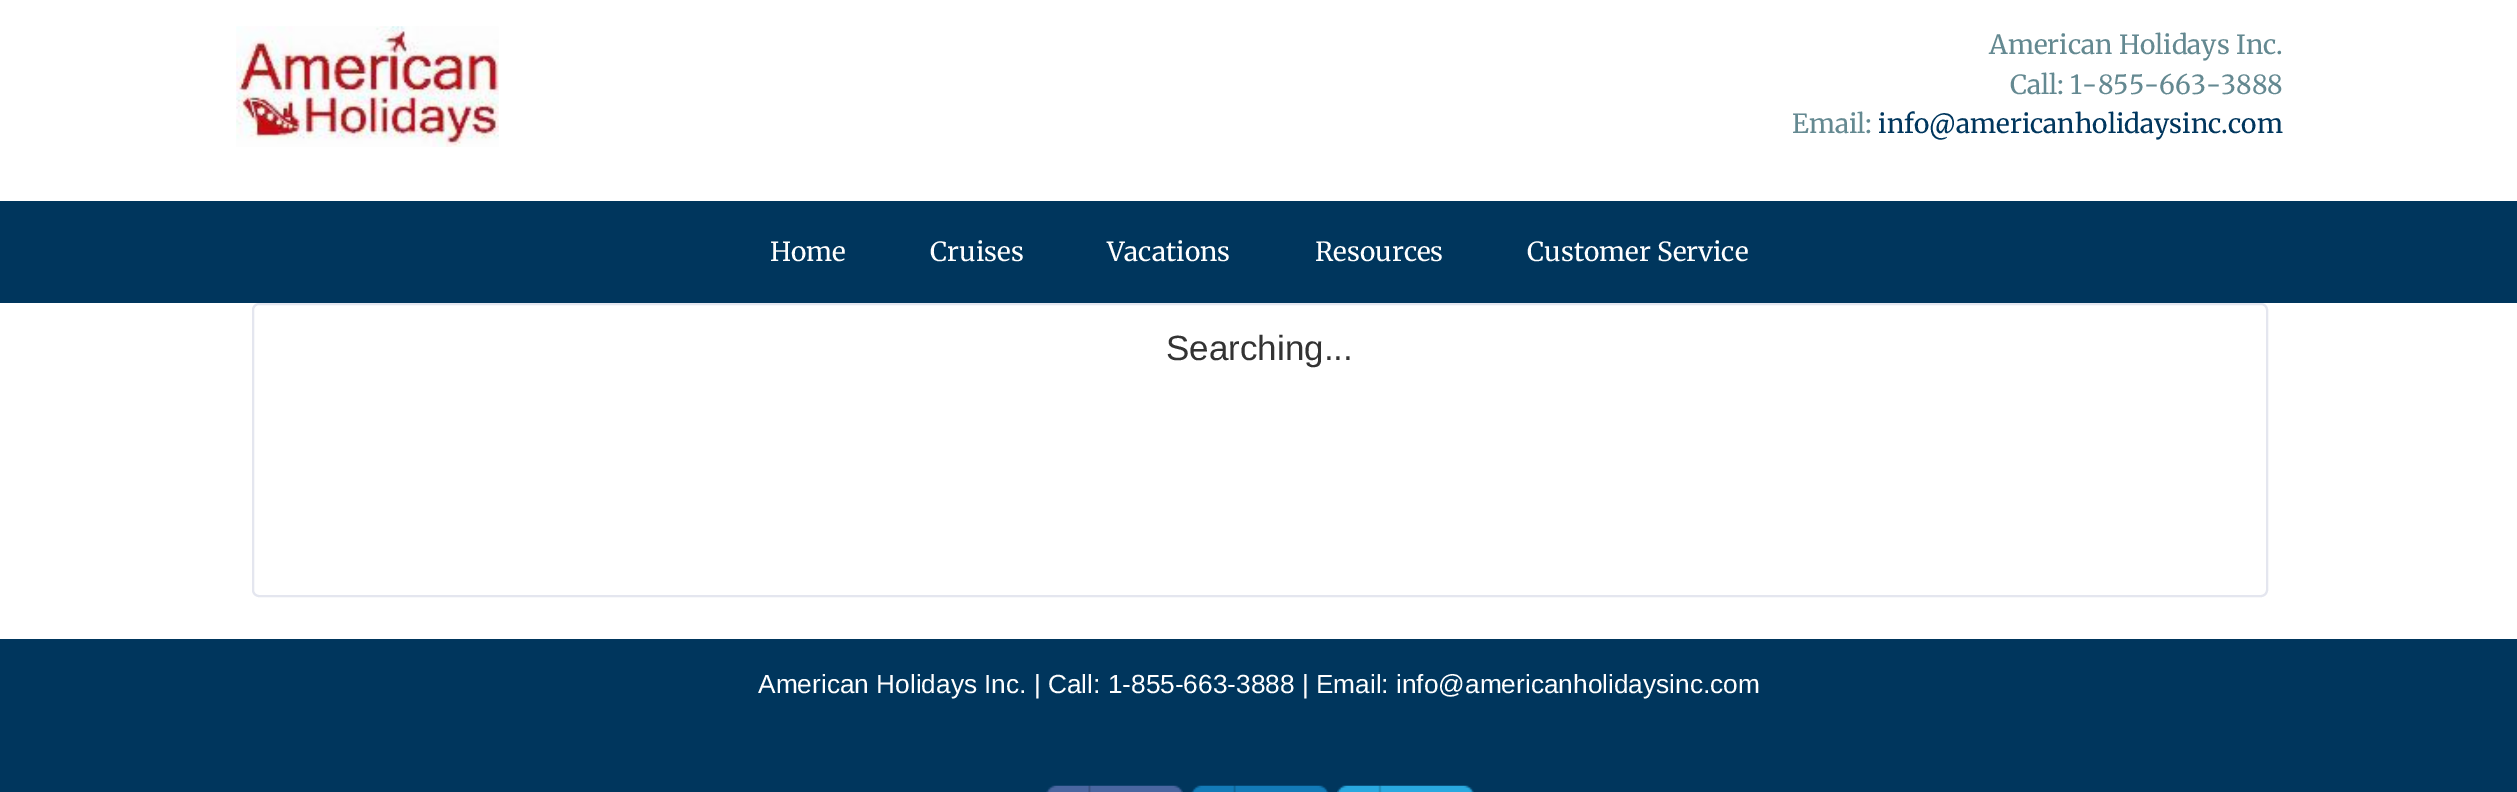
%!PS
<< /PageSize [2517 792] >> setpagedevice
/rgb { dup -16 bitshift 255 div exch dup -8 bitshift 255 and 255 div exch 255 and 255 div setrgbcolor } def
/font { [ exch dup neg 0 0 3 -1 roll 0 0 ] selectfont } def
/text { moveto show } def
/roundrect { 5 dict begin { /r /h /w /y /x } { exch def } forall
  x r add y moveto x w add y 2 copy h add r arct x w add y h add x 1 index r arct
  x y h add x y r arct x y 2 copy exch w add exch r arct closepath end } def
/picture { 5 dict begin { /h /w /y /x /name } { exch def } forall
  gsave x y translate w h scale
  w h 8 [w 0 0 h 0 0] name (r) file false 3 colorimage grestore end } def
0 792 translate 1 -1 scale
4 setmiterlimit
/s1 { /Merriweather-Light 26.25 font 16#648991 rgb } def
/s2 { /Merriweather-Light 26.25 font 16#00365D rgb } def
/s3 { /Merriweather-Light 26.25 font 16#FFFFFF rgb } def
/s4 { /LiberationSans-Regular 35 font 16#333333 rgb } def
/s5 { /LiberationSans-Regular 26.25 font 16#FFFFFF rgb } def
16#FFFFFF rgb
0 0 2517 792 rectfill
(pic1.raw) 236 26 263 121 picture
s1
(American Holidays Inc.) 1989 54 text
(Call: 1-855-663-3888) 2010 94 text
(Email:) 1792 133 text
s2
(info@americanholidaysinc.com) 1878 133 text
0 201 2517 102 rectfill
s3
(Home) 770 261 text
(Cruises) 930 261 text
(Vacations) 1107 261 text
(Resources) 1315 261 text
(Customer Service) 1527 261 text
16#E4E6EF rgb
2 setlinewidth
253 304 2014 292 6 roundrect stroke
s4
(Searching...) 1166 360 text
16#00365D rgb
0 639 2517 153 rectfill
s5
(American Holidays Inc. | Call: 1-855-663-3888 | Email: info@americanholidaysinc.com) 758 693 text
(pic2.raw) 1046 785 137 7 picture
(pic3.raw) 1191 785 138 7 picture
(pic4.raw) 1337 785 137 7 picture
showpage
